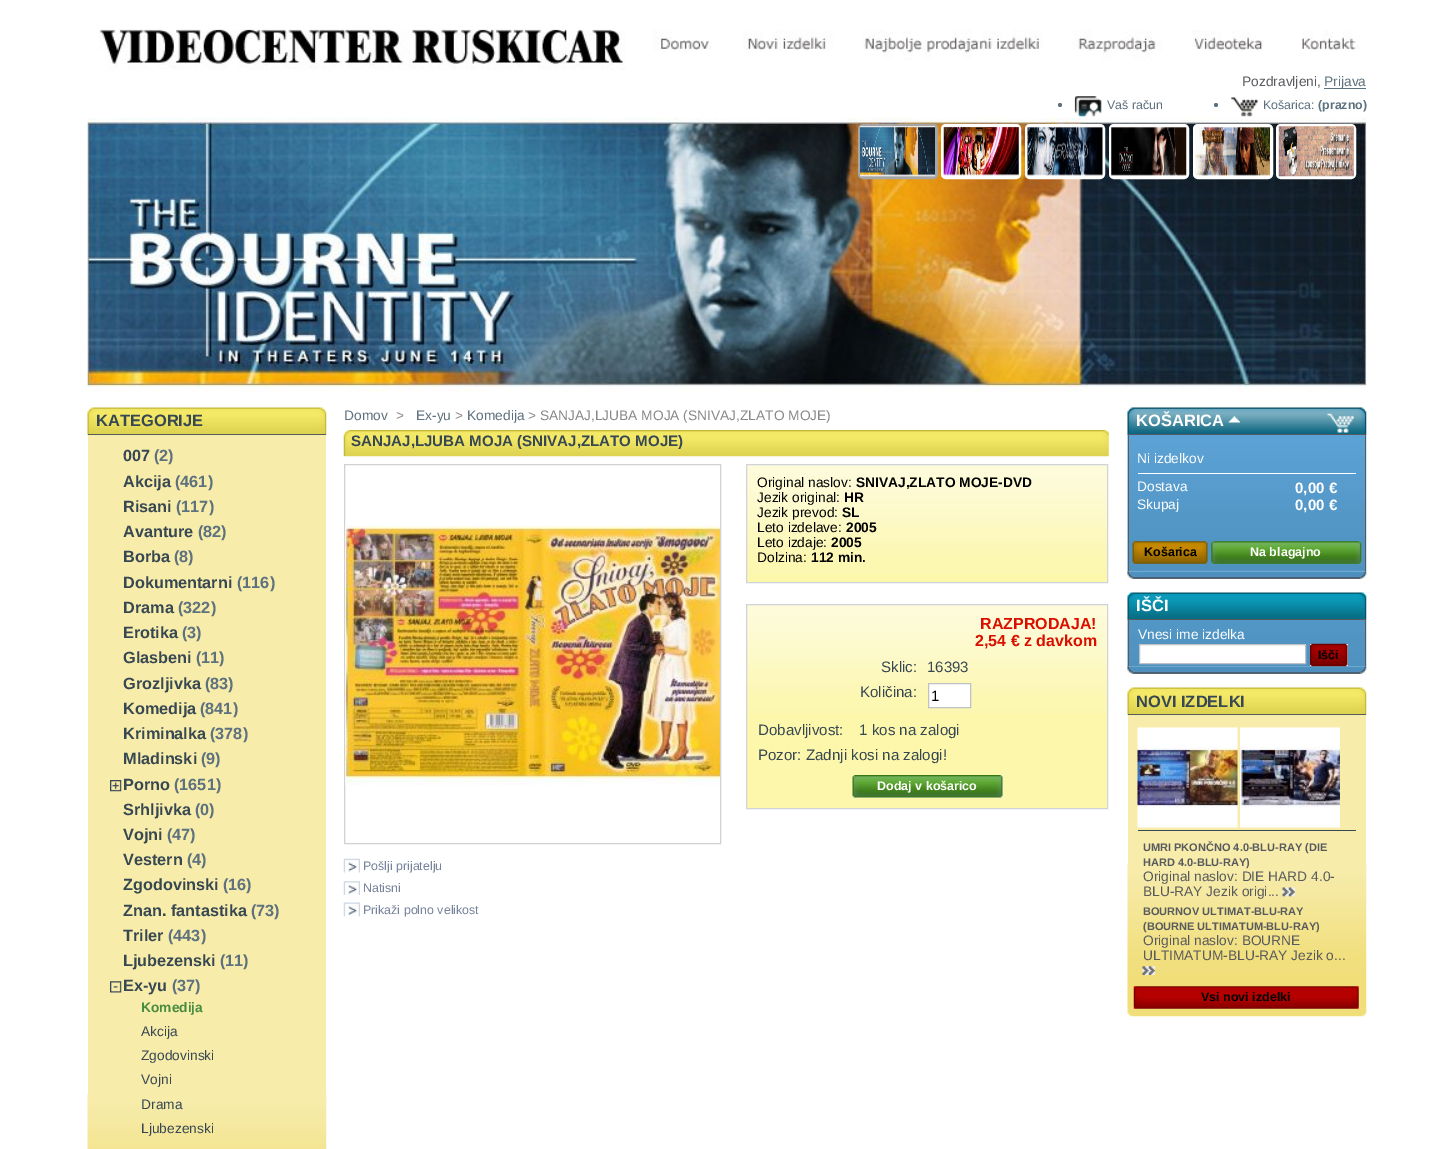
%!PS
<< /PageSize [1455 1149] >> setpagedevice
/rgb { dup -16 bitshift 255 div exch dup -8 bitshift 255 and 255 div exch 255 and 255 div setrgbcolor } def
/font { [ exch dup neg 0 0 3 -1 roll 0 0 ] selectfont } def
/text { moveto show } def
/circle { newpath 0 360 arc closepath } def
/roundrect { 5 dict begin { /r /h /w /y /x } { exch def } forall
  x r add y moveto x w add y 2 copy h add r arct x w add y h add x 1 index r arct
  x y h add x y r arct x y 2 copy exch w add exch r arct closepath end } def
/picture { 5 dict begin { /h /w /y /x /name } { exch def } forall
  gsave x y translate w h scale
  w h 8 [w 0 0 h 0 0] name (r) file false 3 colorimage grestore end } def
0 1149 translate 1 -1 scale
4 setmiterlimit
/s1 { /LiberationSans-Regular 13.75 font 16#595A5E rgb } def
/s2 { /LiberationSans-Regular 13.75 font 16#5D717E rgb } def
/s3 { /LiberationSans-Regular 12.4 font 16#5D717E rgb } def
/s4 { /LiberationSans-Bold 12.4 font 16#5D717E rgb } def
/s5 { /LiberationSans-Bold 16.5 font 16#374853 rgb } def
/s6 { /LiberationSans-Bold 16.25 font 16#374853 rgb } def
/s7 { /LiberationSans-Bold 16.25 font 16#5D717E rgb } def
/s8 { /LiberationSans-Bold 13.75 font 16#488C40 rgb } def
/s9 { /LiberationSans-Regular 13.75 font 16#374853 rgb } def
/s10 { /LiberationSans-Regular 13.75 font 16#888888 rgb } def
/s11 { /LiberationSans-Bold 15.1 font 16#374853 rgb } def
/s12 { /LiberationSans-Regular 13.75 font 16#000000 rgb } def
/s13 { /LiberationSans-Bold 13.75 font 16#000000 rgb } def
/s14 { /LiberationSans-Bold 16 font 16#DA0F00 rgb } def
/s15 { /LiberationSans-Regular 15.1 font 16#374853 rgb } def
/s16 { /LiberationSans-Regular 15 font 16#374853 rgb } def
/s17 { /LiberationSans-Regular 15 font 16#000000 rgb } def
/s18 { /LiberationSans-Bold 12.5 font 16#FFFFFF rgb } def
/s19 { /LiberationSans-Regular 12.4 font 16#76839B rgb } def
/s20 { /LiberationSans-Bold 16.5 font 16#FFFFFF rgb } def
/s21 { /LiberationSans-Regular 13.75 font 16#FFFFFF rgb } def
/s22 { /LiberationSans-Bold 15.1 font 16#FFFFFF rgb } def
/s23 { /LiberationSans-Bold 12.5 font 16#000000 rgb } def
/s24 { /LiberationSans-Bold 11 font 16#595A5E rgb } def
16#FFFFFF rgb
0 0 1455 1149 rectfill
(pic1.raw) 99 29 527 41 picture
(pic2.raw) 653 30 707 30 picture
s1
(Pozdravljeni,) 1242 86 text
16#5D717E rgb
1324 88 42 1 rectfill
(Prijava) 1324 86 text
1060 105 2 circle fill
(pic3.raw) 1074 96 28 21 picture
s3
(Vaš račun) 1107 109 text
1216 105 2 circle fill
(pic4.raw) 1231 97 27 20 picture
(Košarica:) 1263 109 text
s4
(\(prazno\)) 1318 109 text
(pic5.raw) 87 117 1280 276 picture
16#A6A6A6 rgb
3 setlinewidth
859.5 125.5 77 52 3.5 roundrect stroke
(pic6.raw) 860 126 75 51 picture
16#FFFFFF rgb
942.5 125.5 77 52 3.5 roundrect stroke
(pic7.raw) 943 126 76 50 picture
1026.5 125.5 77 52 3.5 roundrect stroke
(pic8.raw) 1027 126 76 50 picture
1110.5 125.5 77 52 3.5 roundrect stroke
(pic9.raw) 1111 126 76 50 picture
1194.5 125.5 77 52 3.5 roundrect stroke
(pic10.raw) 1195 126 75 50 picture
1277.5 125.5 77 52 3.5 roundrect stroke
(pic11.raw) 1278 126 76 51 picture
(pic12.raw) 87 407 240 28 picture
16#595A5E rgb
88 434 238 1 rectfill
s5
(KATEGORIJE) 96 426 text
16#F7ECAA rgb
88 435 238 659 rectfill
(pic13.raw) 87 1093 240 56 picture
s6
(007) 123 461 text
s7
(\(2\)) 154 461 text
s6
(Akcija) 123 487 text
s7
(\(461\)) 175 487 text
s6
(Risani) 123 512 text
s7
(\(117\)) 176 512 text
s6
(Avanture) 123 537 text
s7
(\(82\)) 198 537 text
s6
(Borba) 123 562 text
s7
(\(8\)) 174 562 text
s6
(Dokumentarni) 123 588 text
s7
(\(116\)) 237 588 text
s6
(Drama) 123 613 text
s7
(\(322\)) 178 613 text
s6
(Erotika) 123 638 text
s7
(\(3\)) 182 638 text
s6
(Glasbeni) 123 663 text
s7
(\(11\)) 196 663 text
s6
(Grozljivka) 123 689 text
s7
(\(83\)) 205 689 text
s6
(Komedija) 123 714 text
s7
(\(841\)) 200 714 text
s6
(Kriminalka) 123 739 text
s7
(\(378\)) 210 739 text
s6
(Mladinski) 123 764 text
s7
(\(9\)) 201 764 text
(pic14.raw) 110 780 12 12 picture
s6
(Porno) 123 790 text
s7
(\(1651\)) 174 790 text
s6
(Srhljivka) 123 815 text
s7
(\(0\)) 195 815 text
s6
(Vojni) 123 840 text
s7
(\(47\)) 167 840 text
s6
(Vestern) 123 865 text
s7
(\(4\)) 187 865 text
s6
(Zgodovinski) 123 890 text
s7
(\(16\)) 223 890 text
s6
(Znan. fantastika) 123 916 text
s7
(\(73\)) 251 916 text
s6
(Triler) 123 941 text
s7
(\(443\)) 168 941 text
s6
(Ljubezenski) 123 966 text
s7
(\(11\)) 220 966 text
(pic15.raw) 110 981 12 12 picture
s6
(Ex-yu) 123 991 text
s7
(\(37\)) 172 991 text
s8
(Komedija) 141 1012 text
s9
(Akcija) 141 1036 text
(Zgodovinski) 141 1060 text
(Vojni) 141 1084 text
(Drama) 141 1109 text
(Ljubezenski) 141 1133 text
s2
(Domov) 344 420 text
s10
(>) 396 420 text
s2
(Ex-yu) 416 420 text
s10
(>) 455 420 text
s2
(Komedija) 467 420 text
s10
(> SANJAJ,LJUBA MOJA \(SNIVAJ,ZLATO MOJE\)) 528 420 text
(pic16.raw) 343 430 766 27 picture
s11
(SANJAJ,LJUBA MOJA \(SNIVAJ,ZLATO MOJE\)) 351 446 text
16#FCF7AB rgb
747 574 360 8 rectfill
(pic17.raw) 747 465 360 109 picture
16#D0D3D8 rgb
1 setlinewidth
746.5 464.5 361 118 rectstroke
s12
(Original naslov:) 757 487 text
s13
(SNIVAJ,ZLATO MOJE-DVD) 856 487 text
s12
(Jezik original:) 757 502 text
s13
(HR) 844 502 text
s12
(Jezik prevod:) 757 517 text
s13
(SL) 842 517 text
s12
(Leto izdelave:) 757 532 text
s13
(2005) 846 532 text
s12
(Leto izdaje:) 757 547 text
s13
(2005) 831 547 text
s12
(Dolzina:) 757 562 text
s13
(112 min.) 811 562 text
16#FCF7AB rgb
747 714 360 94 rectfill
(pic17.raw) 747 605 360 109 picture
16#D0D3D8 rgb
746.5 604.5 361 204 rectstroke
s14
(RAZPRODAJA!) 980 629 text
(2,54 € z davkom) 975 646 text
s15
(Sklic:) 881 672 text
s16
(16393) 927 672 text
s15
(Količina:) 860 697 text
16#FFFFFF rgb
928.5 683.5 moveto 970.5 683.5 lineto 970.5 707.5 lineto 928.5 707.5 lineto closepath gsave fill grestore
16#BDC2C9 rgb
stroke
s17
(1) 931 701 text
s15
(Dobavljivost:) 758 735 text
(1 kos na zalogi) 859 735 text
(Pozor: Zadnji kosi na zalogi!) 758 760 text
16#EFEFEF rgb
853 775 150 23 rectfill
(pic18.raw) 852 775 151 23 picture
s18
(Dodaj v košarico) 877 790 text
16#D0D1D5 rgb
344.5 464.5 376 379 rectstroke
(pic19.raw) 345 525 375 260 picture
(pic20.raw) 343 858 17 15 picture
s19
(Pošlji prijatelju) 363 870 text
(pic21.raw) 343 881 17 14 picture
(Natisni) 363 892 text
(pic22.raw) 343 902 17 15 picture
(Prikaži polno velikost) 363 914 text
(pic23.raw) 1127 571 240 8 picture
(pic24.raw) 1127 407 240 28 picture
16#595A5E rgb
1128 434 238 1 rectfill
s20
(KOŠARICA) 1136 426 text
(pic25.raw) 1228 416 12 7 picture
(pic26.raw) 1127 435 240 137 picture
16#595A5E rgb
1365 435 1 136 rectfill
1128 435 1 136 rectfill
s21
(Ni izdelkov) 1137 463 text
1138 473 218 1 rectfill
(Dostava) 1137 491 text
s22
(0,00 €) 1295 493 text
s21
(Skupaj) 1137 509 text
s22
(0,00 €) 1295 510 text
(pic27.raw) 1132 541 76 23 picture
s23
(Košarica) 1144 556 text
(pic28.raw) 1211 541 151 23 picture
s18
(Na blagajno) 1250 556 text
(pic23.raw) 1127 666 240 8 picture
(pic29.raw) 1127 592 240 28 picture
16#595A5E rgb
1128 619 238 1 rectfill
s20
(IŠČI) 1136 611 text
(pic30.raw) 1127 620 240 47 picture
16#595A5E rgb
1365 620 1 46 rectfill
1128 620 1 46 rectfill
s21
(Vnesi ime izdelka) 1138 639 text
1139.5 644.5 moveto 1305.5 644.5 lineto 1305.5 663.5 lineto 1139.5 663.5 lineto closepath gsave fill grestore
16#BDC2C9 rgb
stroke
16#EFEFEF rgb
1310 644 38 22 rectfill
(pic31.raw) 1310 643 38 24 picture
s23
(Išči) 1318 659 text
(pic32.raw) 1127 1008 240 9 picture
(pic33.raw) 1127 687 240 28 picture
16#595A5E rgb
1128 714 238 1 rectfill
s5
(NOVI IZDELKI) 1136 707 text
16#F7ECAA rgb
1128 715 238 294 rectfill
(pic34.raw) 1127 863 240 146 picture
(pic35.raw) 1137 727 101 101 picture
(pic36.raw) 1240 727 100 101 picture
16#374853 rgb
1138 830 218 1 rectfill
s24
(UMRI PKONČNO 4.0-BLU-RAY \(DIE) 1143 851 text
(HARD 4.0-BLU-RAY\)) 1143 866 text
s1
(Original naslov: DIE HARD 4.0-) 1143 881 text
(BLU-RAY Jezik origi...) 1143 896 text
(pic37.raw) 1282 887 13 10 picture
s24
(BOURNOV ULTIMAT-BLU-RAY) 1143 915 text
(\(BOURNE ULTIMATUM-BLU-RAY\)) 1143 930 text
s1
(Original naslov: BOURNE) 1143 945 text
(ULTIMATUM-BLU-RAY Jezik o...) 1143 960 text
(pic38.raw) 1142 966 13 9 picture
(pic39.raw) 1133 986 226 23 picture
s23
(Vsi novi izdelki) 1201 1001 text
showpage
